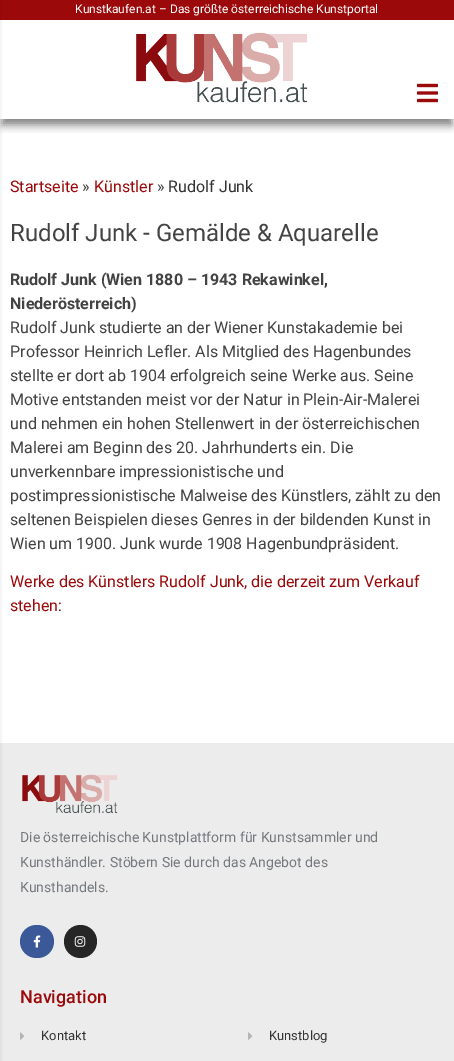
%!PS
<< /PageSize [454 1061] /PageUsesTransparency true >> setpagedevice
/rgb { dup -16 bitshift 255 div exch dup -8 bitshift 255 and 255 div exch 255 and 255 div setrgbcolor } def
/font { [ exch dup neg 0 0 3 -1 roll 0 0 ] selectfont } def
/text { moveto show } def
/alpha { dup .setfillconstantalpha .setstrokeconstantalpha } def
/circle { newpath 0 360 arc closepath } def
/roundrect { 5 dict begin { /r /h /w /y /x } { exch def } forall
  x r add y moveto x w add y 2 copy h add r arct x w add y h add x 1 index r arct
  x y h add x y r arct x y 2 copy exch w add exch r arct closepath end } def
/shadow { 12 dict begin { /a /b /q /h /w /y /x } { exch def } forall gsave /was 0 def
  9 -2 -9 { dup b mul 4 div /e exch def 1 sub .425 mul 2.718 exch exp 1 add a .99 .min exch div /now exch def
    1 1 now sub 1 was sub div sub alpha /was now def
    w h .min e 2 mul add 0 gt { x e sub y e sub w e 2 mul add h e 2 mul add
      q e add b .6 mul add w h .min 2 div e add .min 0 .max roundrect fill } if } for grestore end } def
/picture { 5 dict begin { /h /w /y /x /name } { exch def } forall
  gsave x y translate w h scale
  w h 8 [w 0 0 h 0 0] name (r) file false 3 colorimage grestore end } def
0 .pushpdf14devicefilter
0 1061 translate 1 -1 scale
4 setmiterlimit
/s1 { /Roboto-Regular 12 font 16#FFFFFF rgb } def
/s2 { /Roboto-Regular 16 font 16#9C090A rgb } def
/s3 { /Roboto-Regular 16 font 16#333333 rgb } def
/s4 { /Roboto-Regular 24 font 16#434343 rgb } def
/s5 { /Roboto-Bold 16 font 16#434343 rgb } def
/s6 { /Roboto-Regular 16 font 16#434343 rgb } def
/s7 { /Roboto-Regular 14 font 16#74787D rgb } def
/s8 { /Roboto-Medium 18 font 16#9C090A rgb } def
/s9 { /Roboto-Regular 13 font 16#333333 rgb } def
16#FFFFFF rgb
0 0 454 1061 rectfill
16#9C090A rgb
0 0 454 20 rectfill
gsave
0 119 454 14 rectclip
16#000000 rgb
2 30 450 95 0 4.5 0.5 shadow
grestore
16#ECECEC rgb
0 743 454 318 rectfill
16#000000 rgb
-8 1 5 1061 0 2.5 0.5 shadow
(pic1.raw) 417 83 21 20 picture
(pic2.raw) 136 32 172 71 picture
s1
(Kunstkaufen.at – Das größte österreichische Kunstportal) 75 13 text
s2
(Startseite) 10 192 text
s3
(») 82 192 text
s2
(Künstler) 94 192 text
s3
(» Rudolf Junk) 157 192 text
s4
(Rudolf Junk - Gemälde & Aquarelle) 10 241 text
s5
(Rudolf Junk \(Wien 1880 – 1943 Rekawinkel,) 10 285 text
(Niederösterreich\)) 10 309 text
s6
(Rudolf Junk studierte an der Wiener Kunstakademie bei) 10 333 text
(Professor Heinrich Lefler. Als Mitglied des Hagenbundes) 10 357 text
(stellte er dort ab 1904 erfolgreich seine Werke aus. Seine) 10 381 text
(Motive entstanden meist vor der Natur in Plein-Air-Malerei) 10 405 text
(und nehmen ein hohen Stellenwert in der österreichischen) 10 429 text
(Malerei am Beginn des 20. Jahrhunderts ein. Die) 10 453 text
(unverkennbare impressionistische und) 10 477 text
(postimpressionistische Malweise des Künstlers, zählt zu den) 10 501 text
(seltenen Beispielen dieses Genres in der bildenden Kunst in) 10 525 text
(Wien um 1900. Junk wurde 1908 Hagenbundpräsident.) 10 549 text
s2
(Werke des Künstlers Rudolf Junk, die derzeit zum Verkauf) 10 587 text
(stehen:) 10 611 text
(pic3.raw) 22 774 96 40 picture
s7
(Die österreichische Kunstplattform für Kunstsammler und) 20 842 text
(Kunsthändler. Stöbern Sie durch das Angebot des) 20 867 text
(Kunsthandels.) 20 892 text
16#3B5998 rgb
20 925 34 33 16.5 roundrect fill
(pic4.raw) 33 935 8 13 picture
16#262626 rgb
80.5 941.5 16.5 circle fill
(pic5.raw) 74 936 12 11 picture
s8
(Navigation) 20 1003 text
(pic6.raw) 20 1032 5 8 picture
s9
(Kontakt) 41 1040 text
(pic6.raw) 248 1032 5 8 picture
(Kunstblog) 269 1040 text
.poppdf14devicefilter showpage
